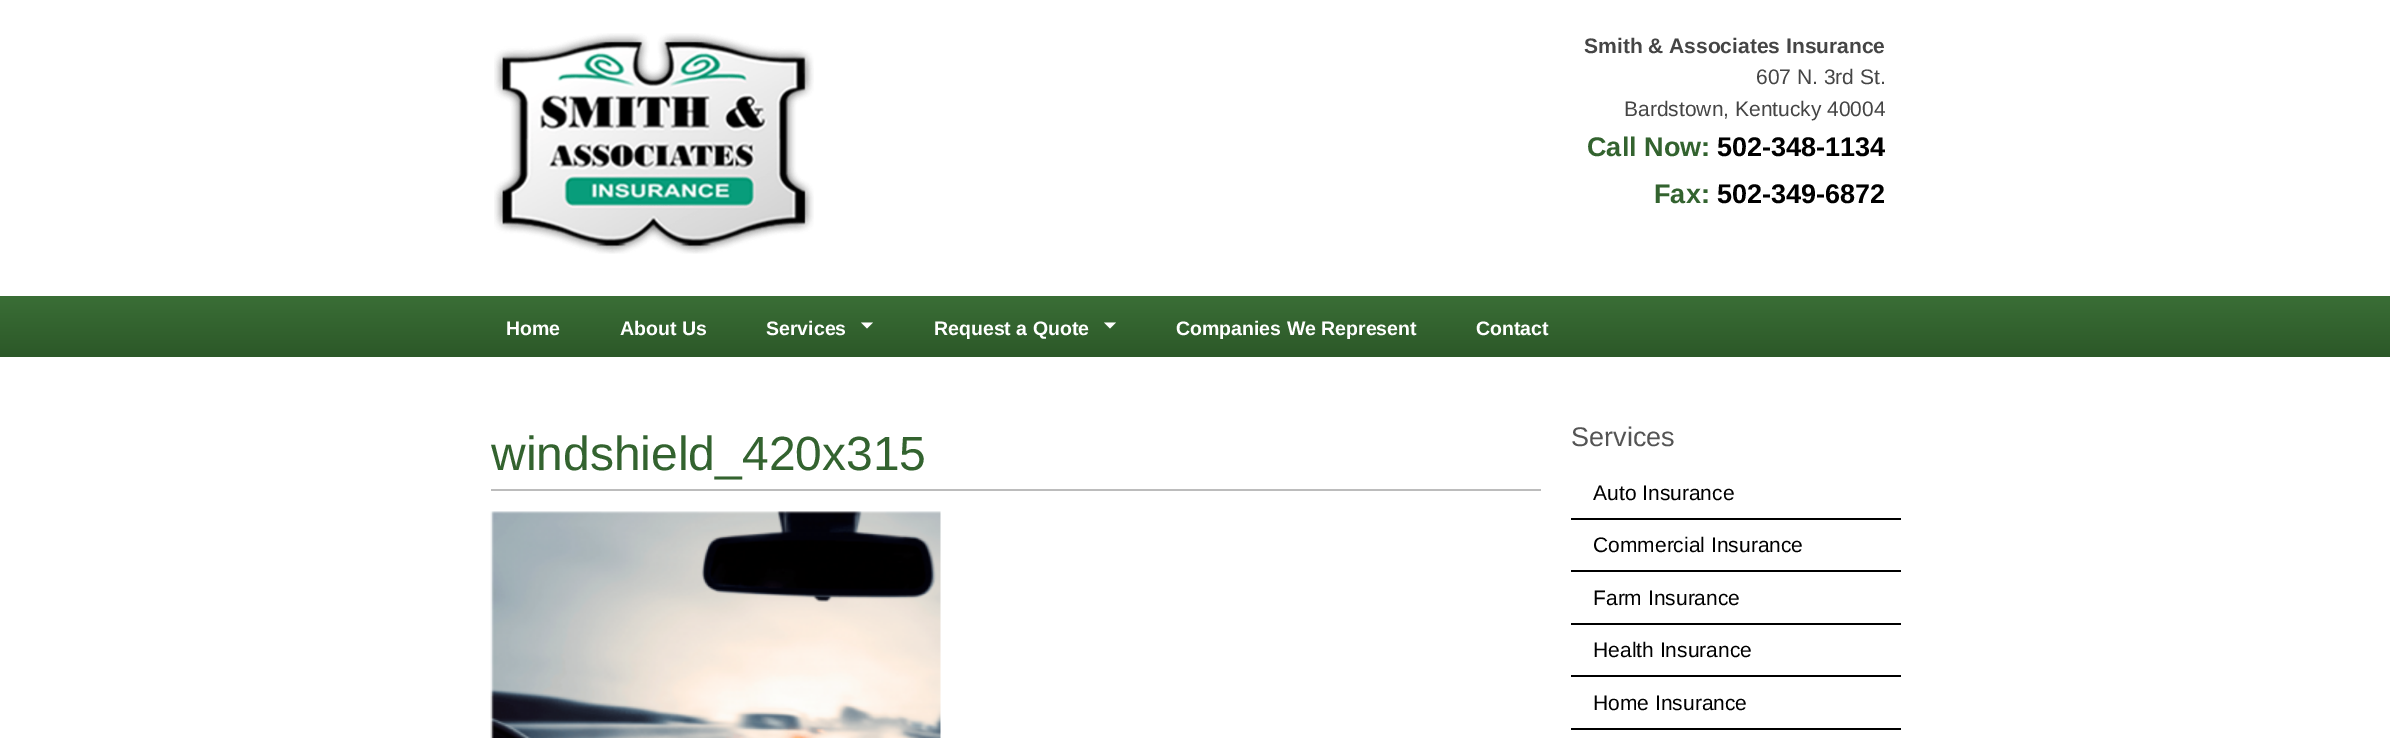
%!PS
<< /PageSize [2390 738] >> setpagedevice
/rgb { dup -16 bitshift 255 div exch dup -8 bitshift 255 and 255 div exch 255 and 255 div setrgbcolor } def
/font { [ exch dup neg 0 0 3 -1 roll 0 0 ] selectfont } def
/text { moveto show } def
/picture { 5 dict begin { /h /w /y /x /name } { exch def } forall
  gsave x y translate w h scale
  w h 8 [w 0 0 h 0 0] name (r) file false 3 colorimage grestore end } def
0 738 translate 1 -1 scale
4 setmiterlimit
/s1 { /LiberationSans-Bold 21 font 16#454545 rgb } def
/s2 { /LiberationSans-Regular 21 font 16#454545 rgb } def
/s3 { /LiberationSans-Bold 27 font 16#33632F rgb } def
/s4 { /LiberationSans-Bold 27 font 16#000000 rgb } def
/s5 { /LiberationSans-Bold 19.5 font 16#FFFFFF rgb } def
/s6 { /LiberationSans-Regular 48 font 16#33632F rgb } def
/s7 { /LiberationSans-Regular 27 font 16#545454 rgb } def
/s8 { /LiberationSans-Regular 21 font 16#000000 rgb } def
16#FFFFFF rgb
0 0 2390 738 rectfill
(pic1.raw) 494 33 320 221 picture
s1
(Smith & Associates Insurance) 1584 53 text
s2
(607 N. 3rd St.) 1756 84 text
(Bardstown, Kentucky 40004) 1624 116 text
s3
(Call Now:) 1587 156 text
s4
(502-348-1134) 1717 156 text
s3
(Fax:) 1654 203 text
s4
(502-349-6872) 1717 203 text
gsave 0 296 moveto 2390 296 lineto 2390 357 lineto 0 357 lineto closepath clip newpath
<< /ShadingType 2 /ColorSpace /DeviceRGB /Coords [1196 295 1196 357] /Extend [true true] /Function << /FunctionType 2 /Domain [0 1] /C0 [0.227 0.431 0.212] /C1 [0.173 0.345 0.157] /N 1 >> >> shfill grestore
s5
(Home) 506 335 text
(About Us) 620 335 text
(Services) 766 335 text
861 322.5 moveto 873 322.5 lineto 867 328.5 lineto closepath fill
(Request a Quote) 934 335 text
1104 322.5 moveto 1116 322.5 lineto 1110 328.5 lineto closepath fill
(Companies We Represent) 1176 335 text
(Contact) 1476 335 text
16#BCBCBC rgb
491 489 1050 2 rectfill
s6
(windshield_420x315) 491 470 text
(pic2.raw) 490 511 451 227 picture
s7
(Services) 1571 446 text
s8
(Auto Insurance) 1593 500 text
1571 518 330 2 rectfill
(Commercial Insurance) 1593 552 text
1571 570 330 2 rectfill
(Farm Insurance) 1593 605 text
1571 623 330 2 rectfill
(Health Insurance) 1593 657 text
1571 675 330 2 rectfill
(Home Insurance) 1593 710 text
1571 728 330 2 rectfill
showpage
